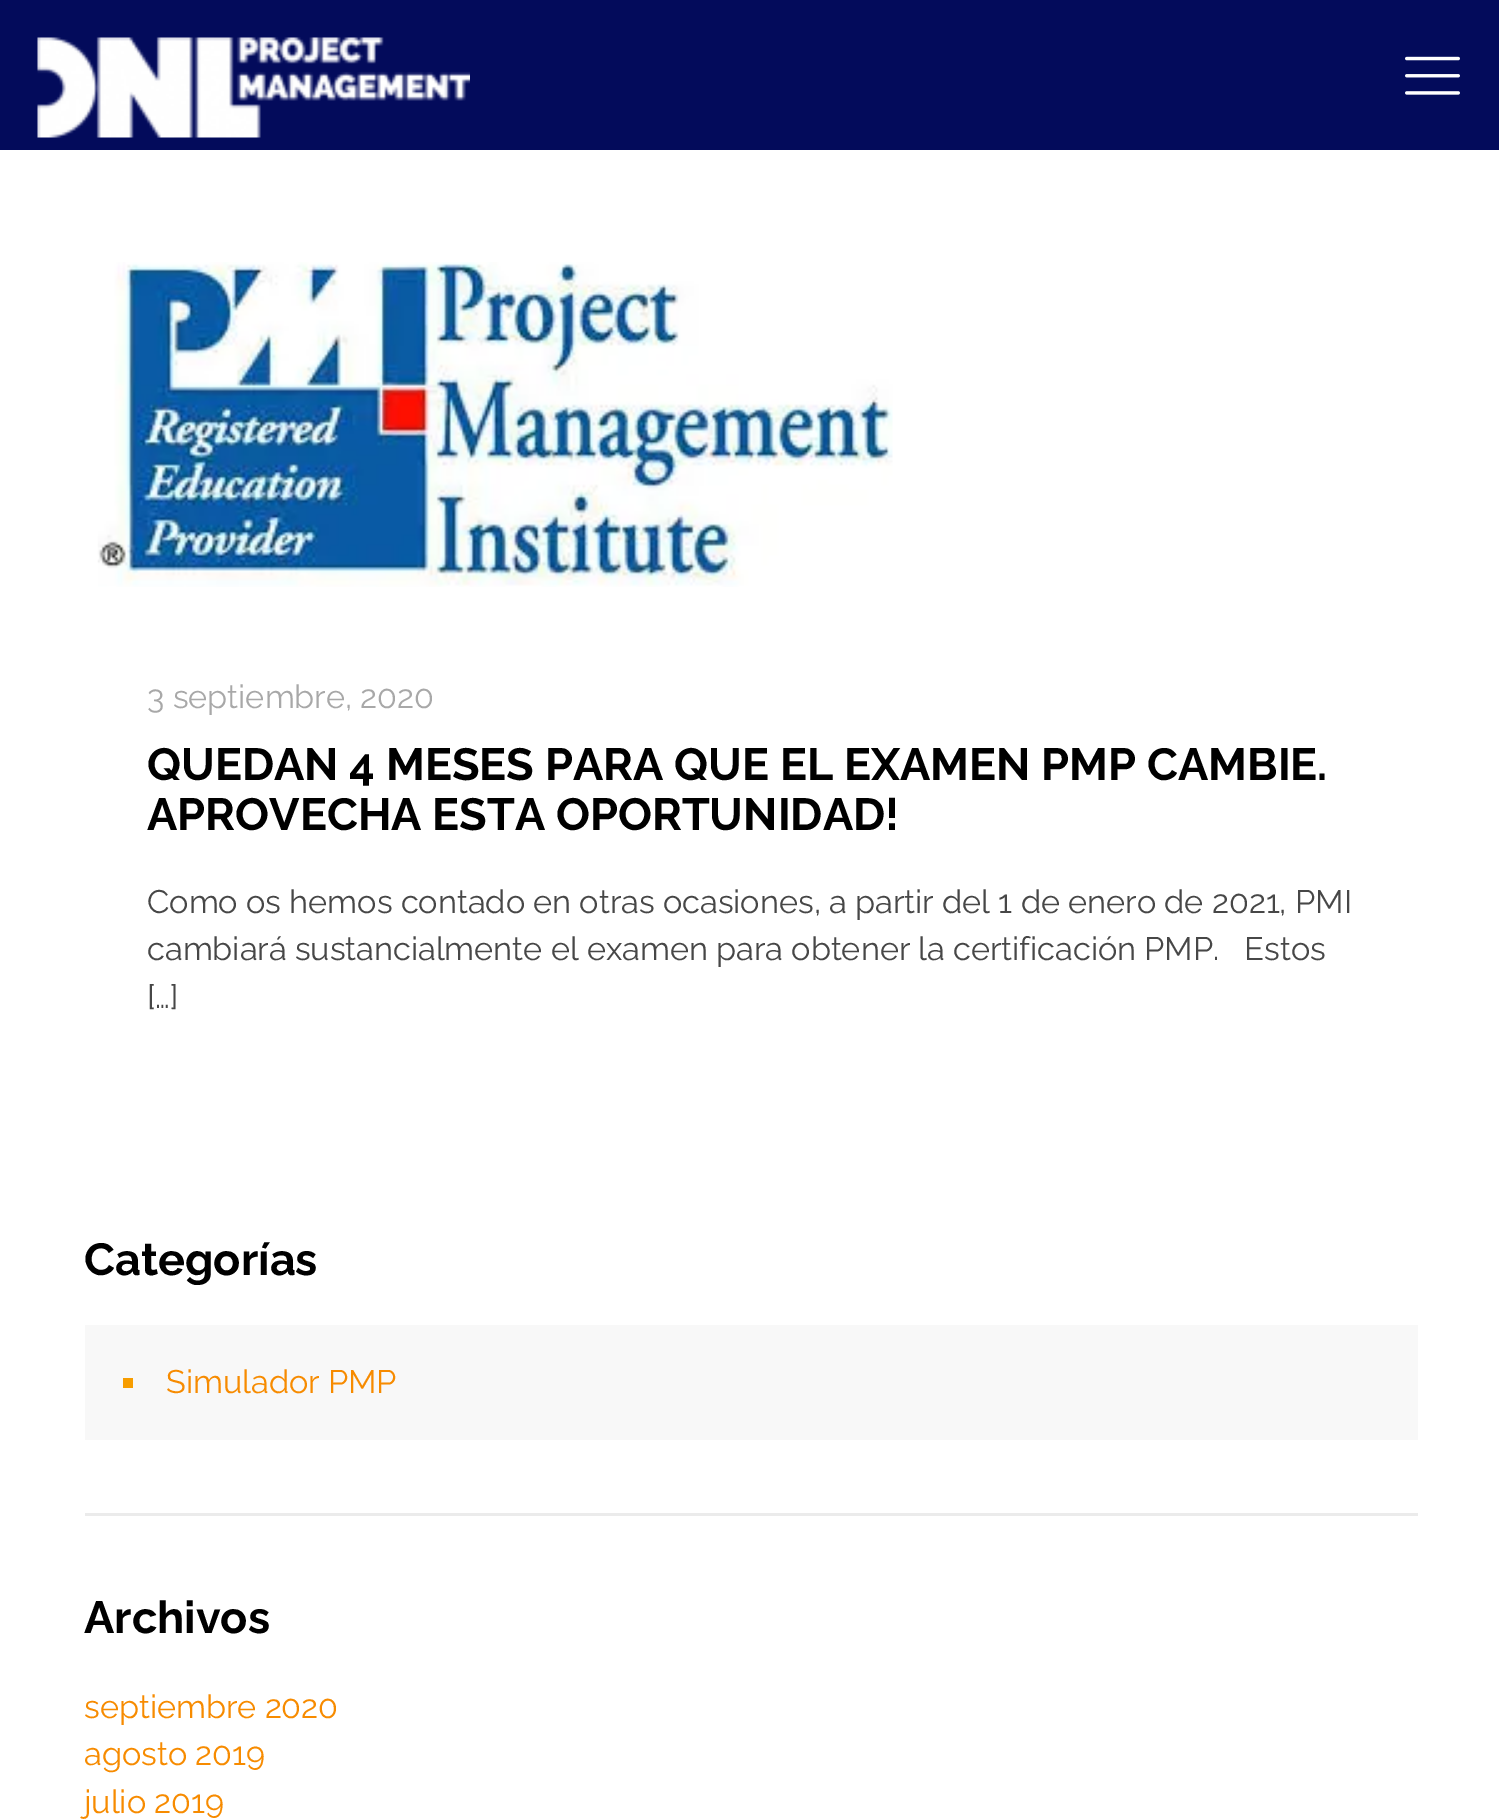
%!PS
<< /PageSize [1499 1820] >> setpagedevice
/rgb { dup -16 bitshift 255 div exch dup -8 bitshift 255 and 255 div exch 255 and 255 div setrgbcolor } def
/font { [ exch dup neg 0 0 3 -1 roll 0 0 ] selectfont } def
/text { moveto show } def
/picture { 5 dict begin { /h /w /y /x /name } { exch def } forall
  gsave x y translate w h scale
  w h 8 [w 0 0 h 0 0] name (r) file false 3 colorimage grestore end } def
0 1820 translate 1 -1 scale
4 setmiterlimit
/s1 { /Raleway-Regular 32.5 font 16#A8A8A8 rgb } def
/s2 { /Raleway-Bold 45 font 16#000000 rgb } def
/s3 { /Raleway-Regular 32.5 font 16#474747 rgb } def
/s4 { /Raleway-Regular 32.5 font 16#F78B00 rgb } def
16#FFFFFF rgb
0 0 1499 1820 rectfill
16#030B5B rgb
0 0 1499 150 rectfill
(pic1.raw) 37 37 433 101 picture
(pic2.raw) 1405 56 55 39 picture
(pic3.raw) 97 262 796 325 picture
s1
(3 septiembre, 2020) 147 708 text
s2
(QUEDAN 4 MESES PARA QUE EL EXAMEN PMP CAMBIE.) 147 780 text
(APROVECHA ESTA OPORTUNIDAD!) 147 830 text
s3
(Como os hemos contado en otras ocasiones, a partir del 1 de enero de 2021, PMI) 147 913 text
(cambiará sustancialmente el examen para obtener la certificación PMP.   Estos) 147 960 text
([…]) 147 1008 text
s2
(Categorías) 84 1275 text
16#F8F8F8 rgb
85 1325 1333 115 rectfill
16#F79D00 rgb
123 1378 10 10 rectfill
s4
(Simulador PMP) 166 1393 text
16#EBEBEB rgb
85 1513 1333 3 rectfill
s2
(Archivos) 84 1633 text
s4
(septiembre 2020) 84 1718 text
(agosto 2019) 84 1765 text
(julio 2019) 84 1813 text
showpage
